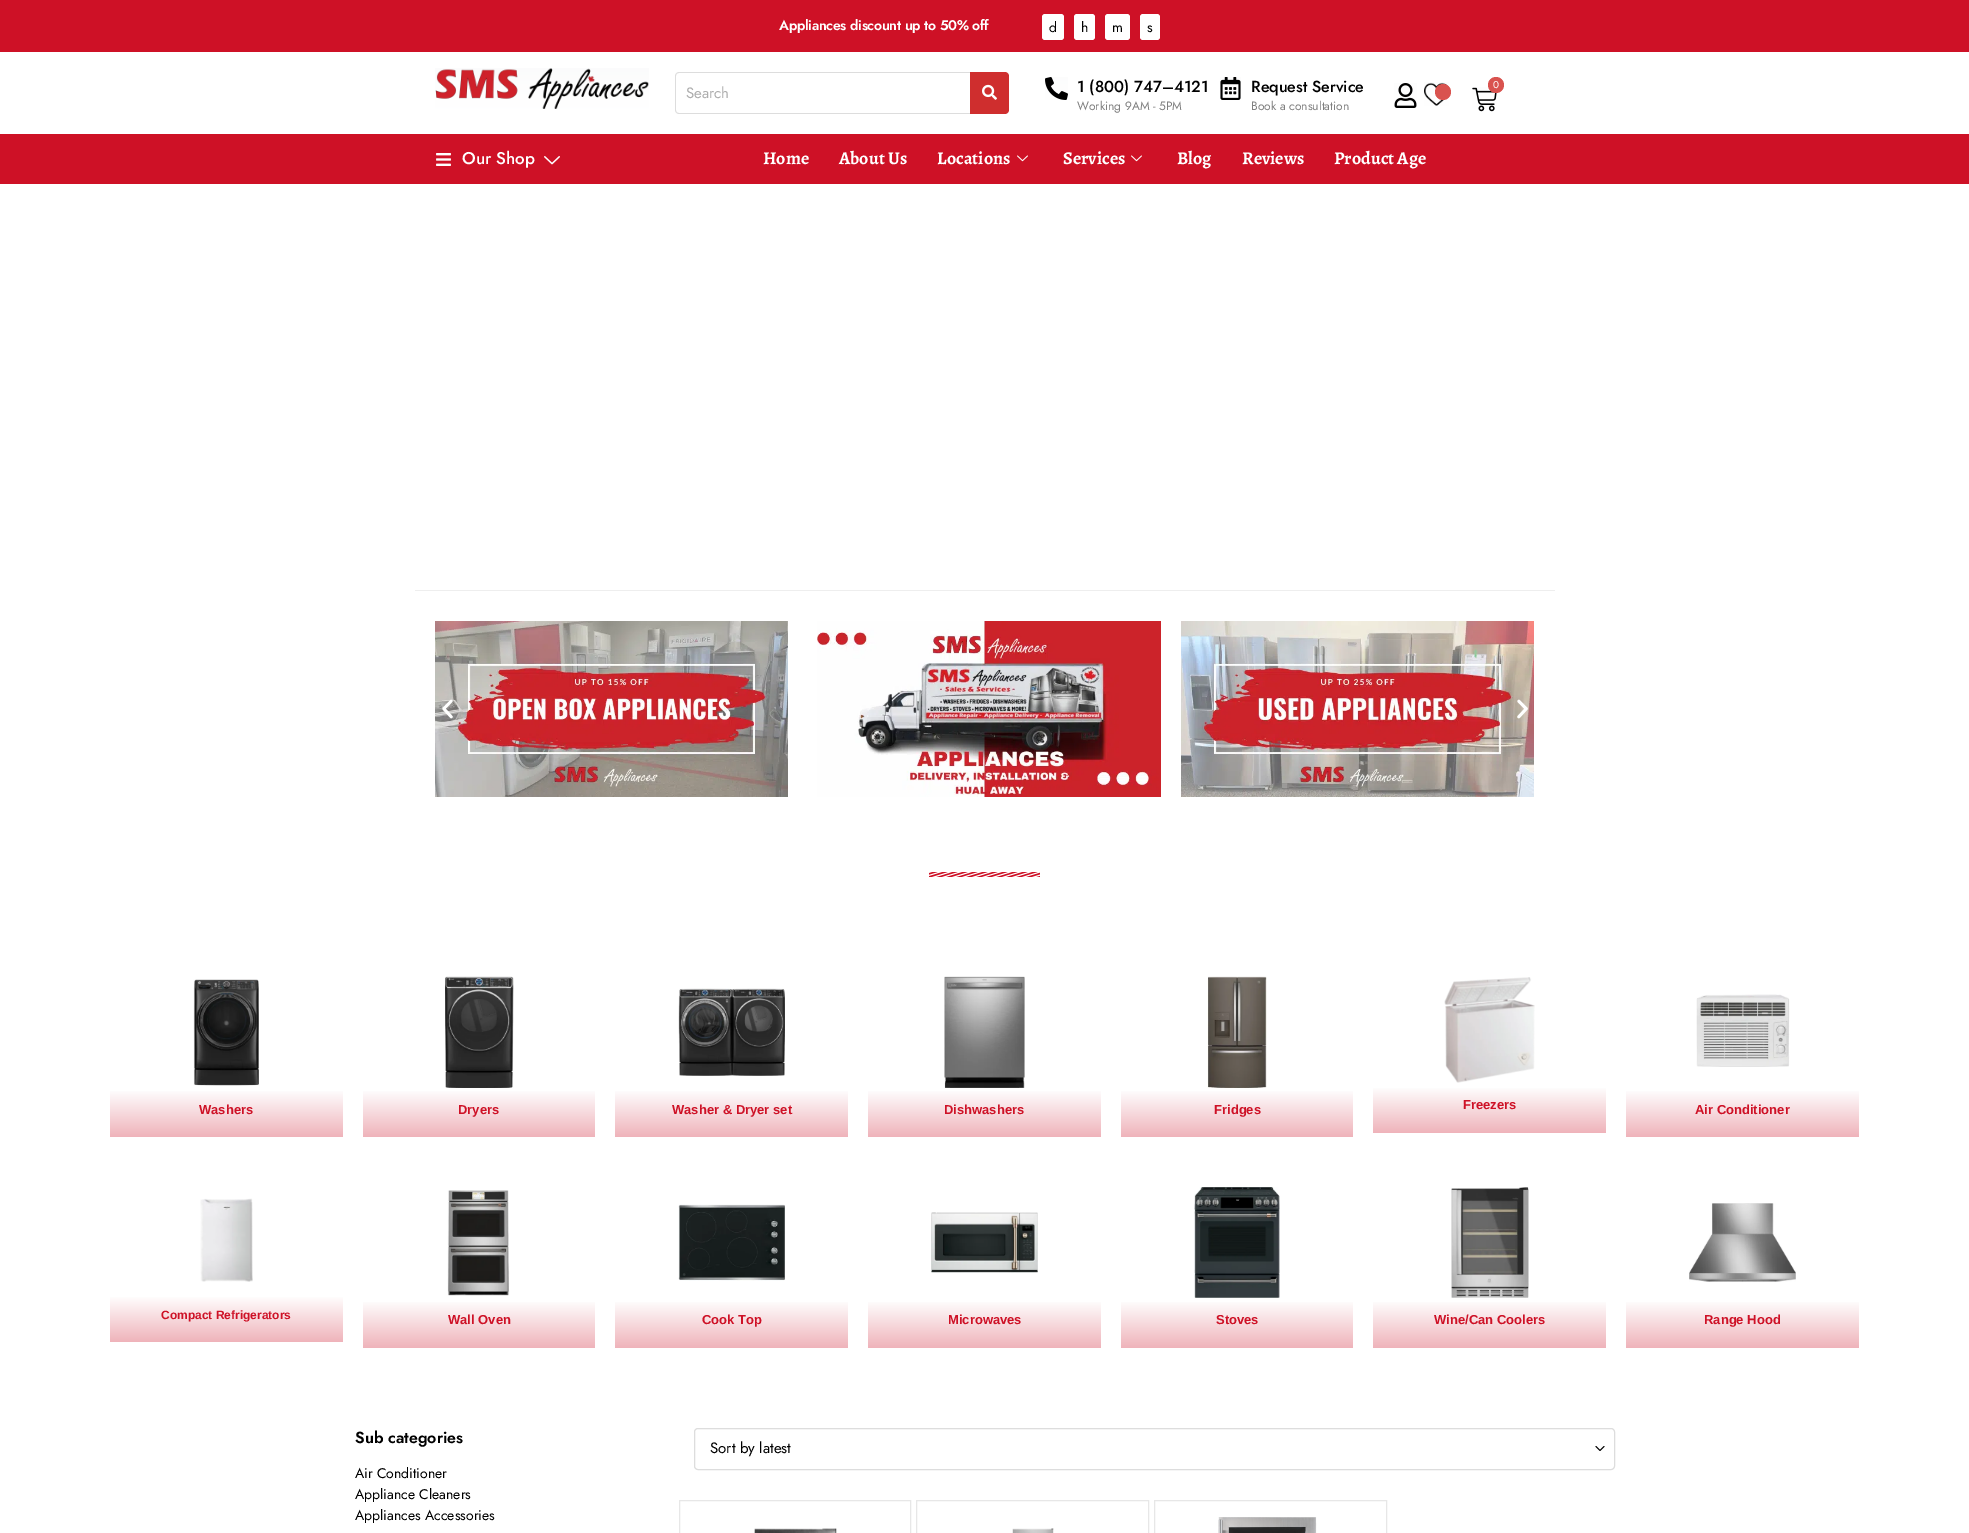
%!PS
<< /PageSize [1969 1533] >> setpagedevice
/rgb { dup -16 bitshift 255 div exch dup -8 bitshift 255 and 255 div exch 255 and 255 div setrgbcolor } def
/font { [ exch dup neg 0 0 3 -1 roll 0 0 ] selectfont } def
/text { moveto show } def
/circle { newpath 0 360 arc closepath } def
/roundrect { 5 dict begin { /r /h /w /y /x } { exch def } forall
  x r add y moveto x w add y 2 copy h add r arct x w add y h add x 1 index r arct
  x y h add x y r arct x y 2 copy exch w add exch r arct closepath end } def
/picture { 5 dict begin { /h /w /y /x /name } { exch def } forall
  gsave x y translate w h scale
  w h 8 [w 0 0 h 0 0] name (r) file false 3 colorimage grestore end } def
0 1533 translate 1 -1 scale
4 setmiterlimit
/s1 { /Jost-Regular 14 font 16#000000 rgb } def
/s2 { /Jost-Medium 16 font 16#000000 rgb } def
/s3 { /Jost-Regular 12 font 16#808080 rgb } def
/s4 { /Jost-Regular 10 font 16#FFFFFF rgb } def
/s5 { /Jost-Regular 15 font 16#ADADAD rgb } def
/s6 { /Jost-Medium 17 font 16#FFFFFF rgb } def
/s7 { /Alegreya-Bold 18 font 16#FFFFFF rgb } def
/s8 { /LiberationSans-Bold 13 font 16#CE1126 rgb } def
/s9 { /LiberationSans-Bold 12 font 16#CE1126 rgb } def
/s10 { /Jost-SemiBold 16 font 16#000000 rgb } def
/s11 { /Jost-Regular 15 font 16#000000 rgb } def
16#FFFFFF rgb
0 0 1969 1533 rectfill
16#CE1126 rgb
0 0 1969 52 rectfill
/Jost-SemiBold 14 font
16#FFFFFF rgb
779 30 moveto -0.3 0 (Appliances discount up to 50% off) ashow
1042 14 22 26 3 roundrect fill
s1
(d) 1049 32 text
16#FFFFFF rgb
1074 14 21 26 3 roundrect fill
s1
(h) 1081 32 text
16#FFFFFF rgb
1105 14 25 26 3 roundrect fill
s1
(m) 1112 32 text
16#FFFFFF rgb
1140 14 20 26 3 roundrect fill
s1
(s) 1147 32 text
(pic1.raw) 435 68 214 41 picture
(pic2.raw) 1045 77 23 23 picture
s2
(1 \(800\) 747–4121) 1077 92 text
s3
(Working 9AM - 5PM) 1077 110 text
(pic3.raw) 1220 77 21 23 picture
s2
(Request Service) 1251 92 text
s3
(Book a consultation) 1251 110 text
(pic4.raw) 1394 83 23 25 picture
(pic5.raw) 1424 82 25 24 picture
16#D9534F rgb
1443 92 8 circle fill
(pic6.raw) 1472 87 25 25 picture
1496 85 8 circle fill
s4
(0) 1493 88 text
16#DDDDDD rgb
679 72 moveto 970 72 lineto 970 114 lineto 679 114 lineto 677 114 675 112 675 110 curveto 675 76 lineto 675 74 677 72 679 72 curveto closepath 679 73 moveto 970 73 lineto 970 113 lineto 679 113 lineto 677 113 676 112 676 110 curveto 676 76 lineto 676 74 677 73 679 73 curveto closepath eofill
s5
(Search) 686 98 text
16#CF2E2E rgb
970 72 moveto 1005 72 lineto 1007 72 1009 74 1009 76 curveto 1009 110 lineto 1009 112 1007 114 1005 114 curveto 970 114 lineto closepath fill
(pic7.raw) 982 84 15 16 picture
16#CE1126 rgb
0 134 1969 50 rectfill
(pic8.raw) 436 153 15 13 picture
s6
(Our Shop) 462 164 text
(pic9.raw) 544 156 16 9 picture
s7
(Home) 763 164 text
(About Us) 839 164 text
(Locations) 937 164 text
(pic10.raw) 1017 155 11 7 picture
(Services) 1063 164 text
(pic10.raw) 1131 155 11 7 picture
(Blog) 1177 164 text
(Reviews) 1242 164 text
(Product Age) 1334 164 text
16#EEEEEE rgb
415 590 1140 1 rectfill
(pic11.raw) 435 621 353 176 picture
(pic12.raw) 817 621 344 176 picture
(pic13.raw) 1181 621 353 176 picture
(pic14.raw) 442 699 11 20 picture
(pic15.raw) 1517 699 11 20 picture
(pic16.raw) 929 872 111 5 picture
gsave 110 1091 moveto 343 1091 lineto 343 1137 lineto 110 1137 lineto closepath clip newpath
<< /ShadingType 2 /ColorSpace /DeviceRGB /Coords [227 967 227 1137] /Extend [true true] /Function << /FunctionType 3 /Domain [0 1] /Functions [<< /FunctionType 2 /Domain [0 1] /C0 [1 1 1] /C1 [1 1 1] /N 1 >> << /FunctionType 2 /Domain [0 1] /C0 [1 1 1] /C1 [0.937 0.702 0.729] /N 1 >>] /Bounds [0.72] /Encode [0 1 0 1] >> >> shfill grestore
(pic17.raw) 193 979 66 107 picture
s8
(Washers) 199 1114 text
gsave 363 1091 moveto 595 1091 lineto 595 1137 lineto 363 1137 lineto closepath clip newpath
<< /ShadingType 2 /ColorSpace /DeviceRGB /Coords [479 967 479 1137] /Extend [true true] /Function << /FunctionType 3 /Domain [0 1] /Functions [<< /FunctionType 2 /Domain [0 1] /C0 [1 1 1] /C1 [1 1 1] /N 1 >> << /FunctionType 2 /Domain [0 1] /C0 [1 1 1] /C1 [0.937 0.702 0.729] /N 1 >>] /Bounds [0.72] /Encode [0 1 0 1] >> >> shfill grestore
(pic18.raw) 445 976 69 112 picture
(Dryers) 458 1114 text
gsave 615 1091 moveto 848 1091 lineto 848 1137 lineto 615 1137 lineto closepath clip newpath
<< /ShadingType 2 /ColorSpace /DeviceRGB /Coords [732 967 732 1137] /Extend [true true] /Function << /FunctionType 3 /Domain [0 1] /Functions [<< /FunctionType 2 /Domain [0 1] /C0 [1 1 1] /C1 [1 1 1] /N 1 >> << /FunctionType 2 /Domain [0 1] /C0 [1 1 1] /C1 [0.937 0.702 0.729] /N 1 >>] /Bounds [0.72] /Encode [0 1 0 1] >> >> shfill grestore
(pic19.raw) 678 988 107 88 picture
(Washer & Dryer set) 672 1114 text
gsave 868 1091 moveto 1101 1091 lineto 1101 1137 lineto 868 1137 lineto closepath clip newpath
<< /ShadingType 2 /ColorSpace /DeviceRGB /Coords [985 967 985 1137] /Extend [true true] /Function << /FunctionType 3 /Domain [0 1] /Functions [<< /FunctionType 2 /Domain [0 1] /C0 [1 1 1] /C1 [1 1 1] /N 1 >> << /FunctionType 2 /Domain [0 1] /C0 [1 1 1] /C1 [0.937 0.702 0.729] /N 1 >>] /Bounds [0.72] /Encode [0 1 0 1] >> >> shfill grestore
(pic20.raw) 944 976 81 112 picture
(Dishwashers) 944 1114 text
gsave 1121 1091 moveto 1353 1091 lineto 1353 1137 lineto 1121 1137 lineto closepath clip newpath
<< /ShadingType 2 /ColorSpace /DeviceRGB /Coords [1237 967 1237 1137] /Extend [true true] /Function << /FunctionType 3 /Domain [0 1] /Functions [<< /FunctionType 2 /Domain [0 1] /C0 [1 1 1] /C1 [1 1 1] /N 1 >> << /FunctionType 2 /Domain [0 1] /C0 [1 1 1] /C1 [0.937 0.702 0.729] /N 1 >>] /Bounds [0.72] /Encode [0 1 0 1] >> >> shfill grestore
(pic21.raw) 1207 976 60 112 picture
(Fridges) 1214 1114 text
gsave 1373 1088 moveto 1606 1088 lineto 1606 1133 lineto 1373 1133 lineto closepath clip newpath
<< /ShadingType 2 /ColorSpace /DeviceRGB /Coords [1490 967 1490 1133] /Extend [true true] /Function << /FunctionType 3 /Domain [0 1] /Functions [<< /FunctionType 2 /Domain [0 1] /C0 [1 1 1] /C1 [1 1 1] /N 1 >> << /FunctionType 2 /Domain [0 1] /C0 [1 1 1] /C1 [0.937 0.702 0.729] /N 1 >>] /Bounds [0.72] /Encode [0 1 0 1] >> >> shfill grestore
(pic22.raw) 1444 977 91 106 picture
(Freezers) 1463 1109 text
gsave 1626 1091 moveto 1859 1091 lineto 1859 1137 lineto 1626 1137 lineto closepath clip newpath
<< /ShadingType 2 /ColorSpace /DeviceRGB /Coords [1743 967 1743 1137] /Extend [true true] /Function << /FunctionType 3 /Domain [0 1] /Functions [<< /FunctionType 2 /Domain [0 1] /C0 [1 1 1] /C1 [1 1 1] /N 1 >> << /FunctionType 2 /Domain [0 1] /C0 [1 1 1] /C1 [0.937 0.702 0.729] /N 1 >>] /Bounds [0.72] /Encode [0 1 0 1] >> >> shfill grestore
(pic23.raw) 1696 994 94 73 picture
(Air Conditioner) 1695 1114 text
gsave 110 1297 moveto 343 1297 lineto 343 1342 lineto 110 1342 lineto closepath clip newpath
<< /ShadingType 2 /ColorSpace /DeviceRGB /Coords [227 1177 227 1342] /Extend [true true] /Function << /FunctionType 3 /Domain [0 1] /Functions [<< /FunctionType 2 /Domain [0 1] /C0 [1 1 1] /C1 [1 1 1] /N 1 >> << /FunctionType 2 /Domain [0 1] /C0 [1 1 1] /C1 [0.937 0.702 0.729] /N 1 >>] /Bounds [0.72] /Encode [0 1 0 1] >> >> shfill grestore
(pic24.raw) 200 1198 53 84 picture
s9
(Compact Refrigerators) 161 1319 text
gsave 363 1302 moveto 595 1302 lineto 595 1348 lineto 363 1348 lineto closepath clip newpath
<< /ShadingType 2 /ColorSpace /DeviceRGB /Coords [479 1177 479 1348] /Extend [true true] /Function << /FunctionType 3 /Domain [0 1] /Functions [<< /FunctionType 2 /Domain [0 1] /C0 [1 1 1] /C1 [1 1 1] /N 1 >> << /FunctionType 2 /Domain [0 1] /C0 [1 1 1] /C1 [0.937 0.702 0.729] /N 1 >>] /Bounds [0.72] /Encode [0 1 0 1] >> >> shfill grestore
(pic25.raw) 447 1190 63 106 picture
s8
(Wall Oven) 448 1324 text
gsave 615 1302 moveto 848 1302 lineto 848 1348 lineto 615 1348 lineto closepath clip newpath
<< /ShadingType 2 /ColorSpace /DeviceRGB /Coords [732 1177 732 1348] /Extend [true true] /Function << /FunctionType 3 /Domain [0 1] /Functions [<< /FunctionType 2 /Domain [0 1] /C0 [1 1 1] /C1 [1 1 1] /N 1 >> << /FunctionType 2 /Domain [0 1] /C0 [1 1 1] /C1 [0.937 0.702 0.729] /N 1 >>] /Bounds [0.72] /Encode [0 1 0 1] >> >> shfill grestore
(pic26.raw) 678 1204 107 77 picture
(Cook Top) 702 1324 text
gsave 868 1302 moveto 1101 1302 lineto 1101 1348 lineto 868 1348 lineto closepath clip newpath
<< /ShadingType 2 /ColorSpace /DeviceRGB /Coords [985 1177 985 1348] /Extend [true true] /Function << /FunctionType 3 /Domain [0 1] /Functions [<< /FunctionType 2 /Domain [0 1] /C0 [1 1 1] /C1 [1 1 1] /N 1 >> << /FunctionType 2 /Domain [0 1] /C0 [1 1 1] /C1 [0.937 0.702 0.729] /N 1 >>] /Bounds [0.72] /Encode [0 1 0 1] >> >> shfill grestore
(pic27.raw) 931 1212 107 61 picture
(Microwaves) 948 1324 text
gsave 1121 1302 moveto 1353 1302 lineto 1353 1348 lineto 1121 1348 lineto closepath clip newpath
<< /ShadingType 2 /ColorSpace /DeviceRGB /Coords [1237 1177 1237 1348] /Extend [true true] /Function << /FunctionType 3 /Domain [0 1] /Functions [<< /FunctionType 2 /Domain [0 1] /C0 [1 1 1] /C1 [1 1 1] /N 1 >> << /FunctionType 2 /Domain [0 1] /C0 [1 1 1] /C1 [0.937 0.702 0.729] /N 1 >>] /Bounds [0.72] /Encode [0 1 0 1] >> >> shfill grestore
(pic28.raw) 1194 1187 86 111 picture
(Stoves) 1216 1324 text
gsave 1373 1302 moveto 1606 1302 lineto 1606 1348 lineto 1373 1348 lineto closepath clip newpath
<< /ShadingType 2 /ColorSpace /DeviceRGB /Coords [1490 1177 1490 1348] /Extend [true true] /Function << /FunctionType 3 /Domain [0 1] /Functions [<< /FunctionType 2 /Domain [0 1] /C0 [1 1 1] /C1 [1 1 1] /N 1 >> << /FunctionType 2 /Domain [0 1] /C0 [1 1 1] /C1 [0.937 0.702 0.729] /N 1 >>] /Bounds [0.72] /Encode [0 1 0 1] >> >> shfill grestore
(pic29.raw) 1451 1187 78 111 picture
(Wine/Can Coolers) 1434 1324 text
gsave 1626 1302 moveto 1859 1302 lineto 1859 1348 lineto 1626 1348 lineto closepath clip newpath
<< /ShadingType 2 /ColorSpace /DeviceRGB /Coords [1743 1177 1743 1348] /Extend [true true] /Function << /FunctionType 3 /Domain [0 1] /Functions [<< /FunctionType 2 /Domain [0 1] /C0 [1 1 1] /C1 [1 1 1] /N 1 >> << /FunctionType 2 /Domain [0 1] /C0 [1 1 1] /C1 [0.937 0.702 0.729] /N 1 >>] /Bounds [0.72] /Encode [0 1 0 1] >> >> shfill grestore
(pic30.raw) 1689 1203 107 79 picture
(Range Hood) 1704 1324 text
s10
(Sub categories) 355 1443 text
s1
(Air Conditioner) 355 1478 text
(Appliance Cleaners) 355 1499 text
(Appliances Accessories) 355 1520 text
0.9 setlinewidth
1 setlinecap
1 setlinejoin
1596 1446.5 moveto 1600 1450.5 lineto 1604 1446.5 lineto stroke
16#DDDDDD rgb
1 setlinewidth
0 setlinecap
0 setlinejoin
694.5 1428.5 920 41 3.5 roundrect stroke
s11
(Sort by latest) 710 1453 text
16#E7E7E7 rgb
679.5 1500.5 231 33 rectstroke
(pic31.raw) 754 1528 83 5 picture
916.5 1500.5 232 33 rectstroke
(pic32.raw) 1012 1528 42 5 picture
1154.5 1500.5 232 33 rectstroke
(pic33.raw) 1218 1517 99 16 picture
showpage
